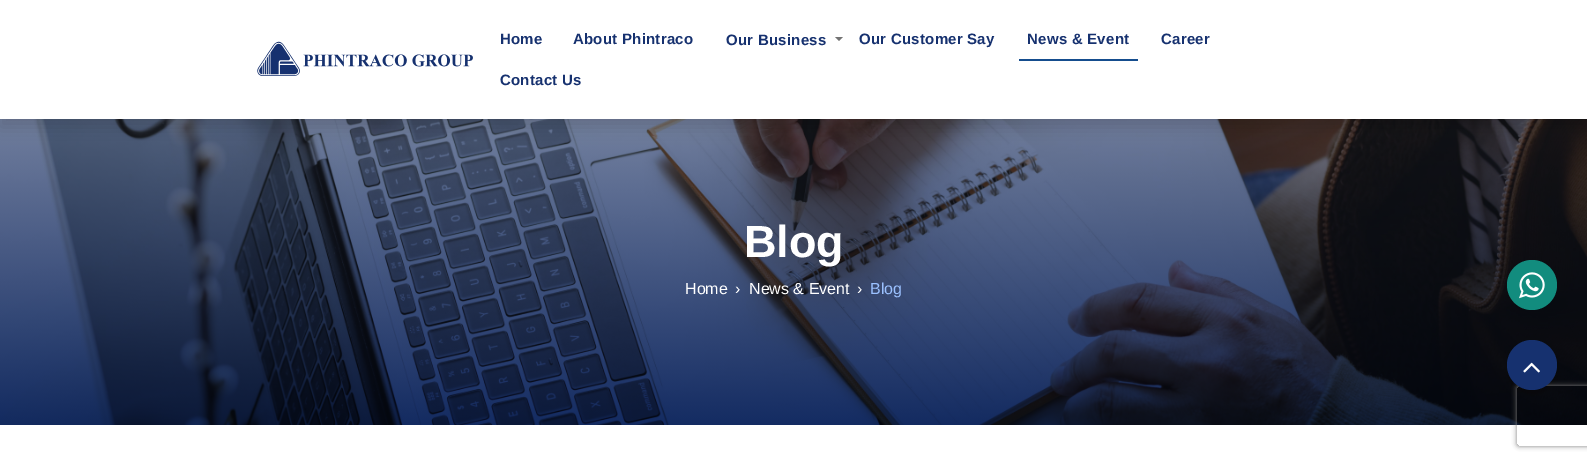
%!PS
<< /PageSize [1587 460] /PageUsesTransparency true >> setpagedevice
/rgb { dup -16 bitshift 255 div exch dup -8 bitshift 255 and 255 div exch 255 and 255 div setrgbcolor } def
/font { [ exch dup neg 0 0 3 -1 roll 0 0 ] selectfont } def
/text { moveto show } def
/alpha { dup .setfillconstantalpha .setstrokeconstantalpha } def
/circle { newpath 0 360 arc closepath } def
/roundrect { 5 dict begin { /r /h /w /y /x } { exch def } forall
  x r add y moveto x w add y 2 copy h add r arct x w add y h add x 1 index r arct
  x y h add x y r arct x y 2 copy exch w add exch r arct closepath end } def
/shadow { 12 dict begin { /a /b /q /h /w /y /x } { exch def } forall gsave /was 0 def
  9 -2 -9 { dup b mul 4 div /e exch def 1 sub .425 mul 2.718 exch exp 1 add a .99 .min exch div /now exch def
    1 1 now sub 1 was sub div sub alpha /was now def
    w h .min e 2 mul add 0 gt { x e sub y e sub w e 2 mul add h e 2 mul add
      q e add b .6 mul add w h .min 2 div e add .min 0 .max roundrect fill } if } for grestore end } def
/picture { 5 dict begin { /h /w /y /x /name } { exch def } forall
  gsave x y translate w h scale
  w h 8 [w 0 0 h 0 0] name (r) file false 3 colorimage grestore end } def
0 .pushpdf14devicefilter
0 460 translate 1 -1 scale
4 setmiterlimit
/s1 { /LiberationSans-Bold 45 font 16#FFFFFF rgb } def
/s2 { /LiberationSans-Regular 16 font 16#FFFFFF rgb } def
/s3 { /LiberationSans-Regular 16 font 16#9BC1FF rgb } def
16#FFFFFF rgb
0 0 1587 460 rectfill
(pic2.raw) 0 119 1587 306 picture
16#000000 rgb
0 8 1587 119 0 8 0.15 shadow
16#FFFFFF rgb
0 0 1587 119 rectfill
(pic1.raw) 257 41 216 35 picture
/LiberationSans-Bold 15 font
16#16316F rgb
500 44 moveto 0.25 0 (Home) ashow
573 44 moveto 0.25 0 (About Phintraco) ashow
726 45 moveto 0.25 0 (Our Business) ashow
16#737373 rgb
835 37 moveto 843 37 lineto 839 41 lineto closepath fill
16#16316F rgb
859 44 moveto 0.25 0 (Our Customer Say) ashow
16#154D8E rgb
1019 59 119 2 rectfill
16#16316F rgb
1027 44 moveto 0.25 0 (News & Event) ashow
1161 44 moveto 0.25 0 (Career) ashow
500 85 moveto 0.25 0 (Contact Us) ashow
s1
(Blog) 744 257 text
s2
(Home) 685 294 text
(›) 735 294 text
(News & Event) 749 294 text
(›) 857 294 text
s3
(Blog) 870 294 text
16#128C7E rgb
1532 285 25 circle fill
(pic3.raw) 1519 272 26 27 picture
16#000000 rgb
1507 345 50 50 25 2.5 0.25 shadow
gsave
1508 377 moveto 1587 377 lineto 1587 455 lineto 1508 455 lineto closepath 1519 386 moveto 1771 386 lineto 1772 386 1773 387 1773 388 curveto 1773 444 lineto 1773 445 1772 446 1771 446 curveto 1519 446 lineto 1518 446 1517 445 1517 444 curveto 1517 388 lineto 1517 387 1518 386 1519 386 curveto closepath eoclip newpath
16#808080 rgb
1517 386 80 60 2 2.5 1 shadow
grestore
16#16316F rgb
1532 365 25 circle fill
(pic4.raw) 1523 362 17 11 picture
.poppdf14devicefilter showpage
